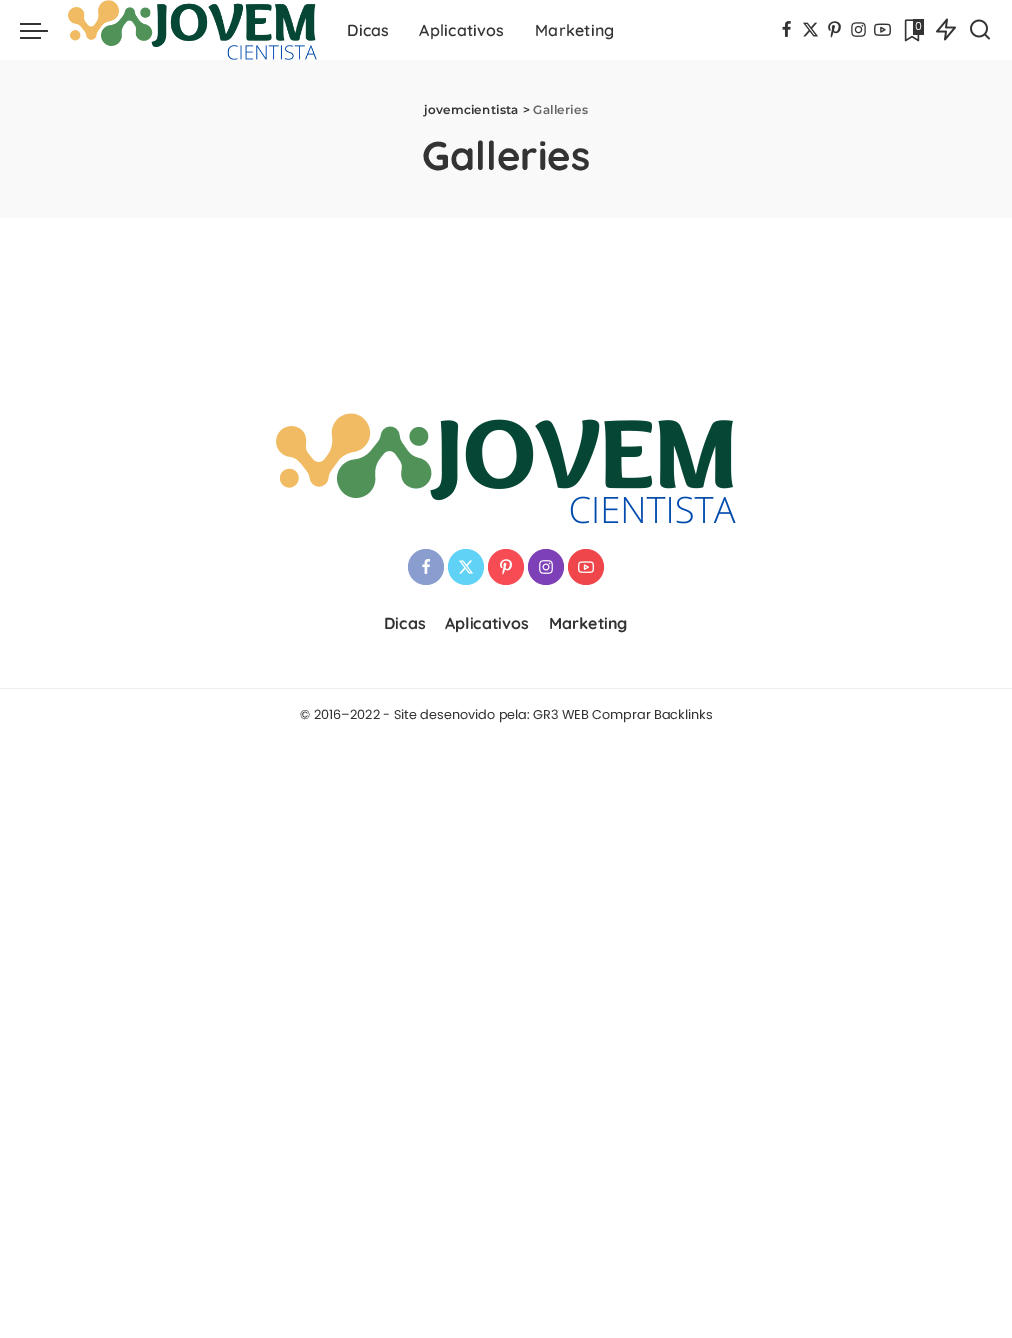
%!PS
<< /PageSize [1012 1338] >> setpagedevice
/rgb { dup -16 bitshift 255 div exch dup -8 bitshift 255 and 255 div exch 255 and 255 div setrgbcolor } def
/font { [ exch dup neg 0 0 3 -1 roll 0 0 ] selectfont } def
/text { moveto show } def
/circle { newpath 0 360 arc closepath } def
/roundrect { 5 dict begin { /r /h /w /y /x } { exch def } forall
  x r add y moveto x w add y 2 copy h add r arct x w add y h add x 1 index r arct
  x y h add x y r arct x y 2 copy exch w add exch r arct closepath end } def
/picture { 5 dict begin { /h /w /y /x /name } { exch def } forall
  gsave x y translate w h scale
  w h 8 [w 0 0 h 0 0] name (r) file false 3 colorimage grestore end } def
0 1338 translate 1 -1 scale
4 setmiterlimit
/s1 { /Poppins-Regular 11 font 16#FFFFFF rgb } def
/s2 { /Quicksand-Bold 40 font 16#333333 rgb } def
/s3 { /Quicksand-Bold 16 font 16#333333 rgb } def
/s4 { /Poppins-Regular 12.8 font 16#333333 rgb } def
16#FFFFFF rgb
0 0 1012 1338 rectfill
16#333333 rgb
20 30 28 2 1 roundrect fill
20 23 21 2 rectfill
20 37 21 2 rectfill
(pic1.raw) 68 0 249 60 picture
/Quicksand-SemiBold 16 font
347 36 moveto 0.25 0 (Dicas) ashow
419 36 moveto 0.25 0 (Aplicativos) ashow
535 36 moveto 0.25 0 (Marketing) ashow
(pic2.raw) 782 21 9 16 picture
(pic3.raw) 803 22 15 15 picture
(pic4.raw) 828 21 13 17 picture
(pic5.raw) 851 22 15 15 picture
(pic6.raw) 874 23 17 13 picture
(pic7.raw) 904 19 16 23 picture
913 19 11 16 rectfill
s1
(0) 915 30 text
(pic8.raw) 936 18 20 23 picture
(pic9.raw) 970 19 20 21 picture
16#F9F9F9 rgb
0 60 1012 158 rectfill
/Montserrat-SemiBold 12 font
16#333333 rgb
424 114 moveto 0.25 0 (jovemcientista >) ashow
16#666666 rgb
533 114 moveto 0.25 0 (Galleries) ashow
s2
(Galleries) 422 170 text
(pic10.raw) 276 413 460 111 picture
16#899DCE rgb
426 567 18 circle fill
(pic11.raw) 422 559 8 15 picture
16#60D2F5 rgb
466 567 18 circle fill
(pic12.raw) 459 560 15 14 picture
16#F74C53 rgb
506 567 18 circle fill
(pic13.raw) 500 559 12 16 picture
16#7E40B6 rgb
546 567 18 circle fill
(pic14.raw) 539 560 14 14 picture
16#EF464B rgb
586 567 18 circle fill
(pic15.raw) 578 561 16 12 picture
s3
(Dicas) 384 629 text
(Aplicativos) 445 629 text
(Marketing) 549 629 text
16#EFEFEF rgb
0 688 1012 1 rectfill
s4
(© 2016–2022 - Site desenovido pela: GR3 WEB Comprar Backlinks) 300 719 text
showpage
